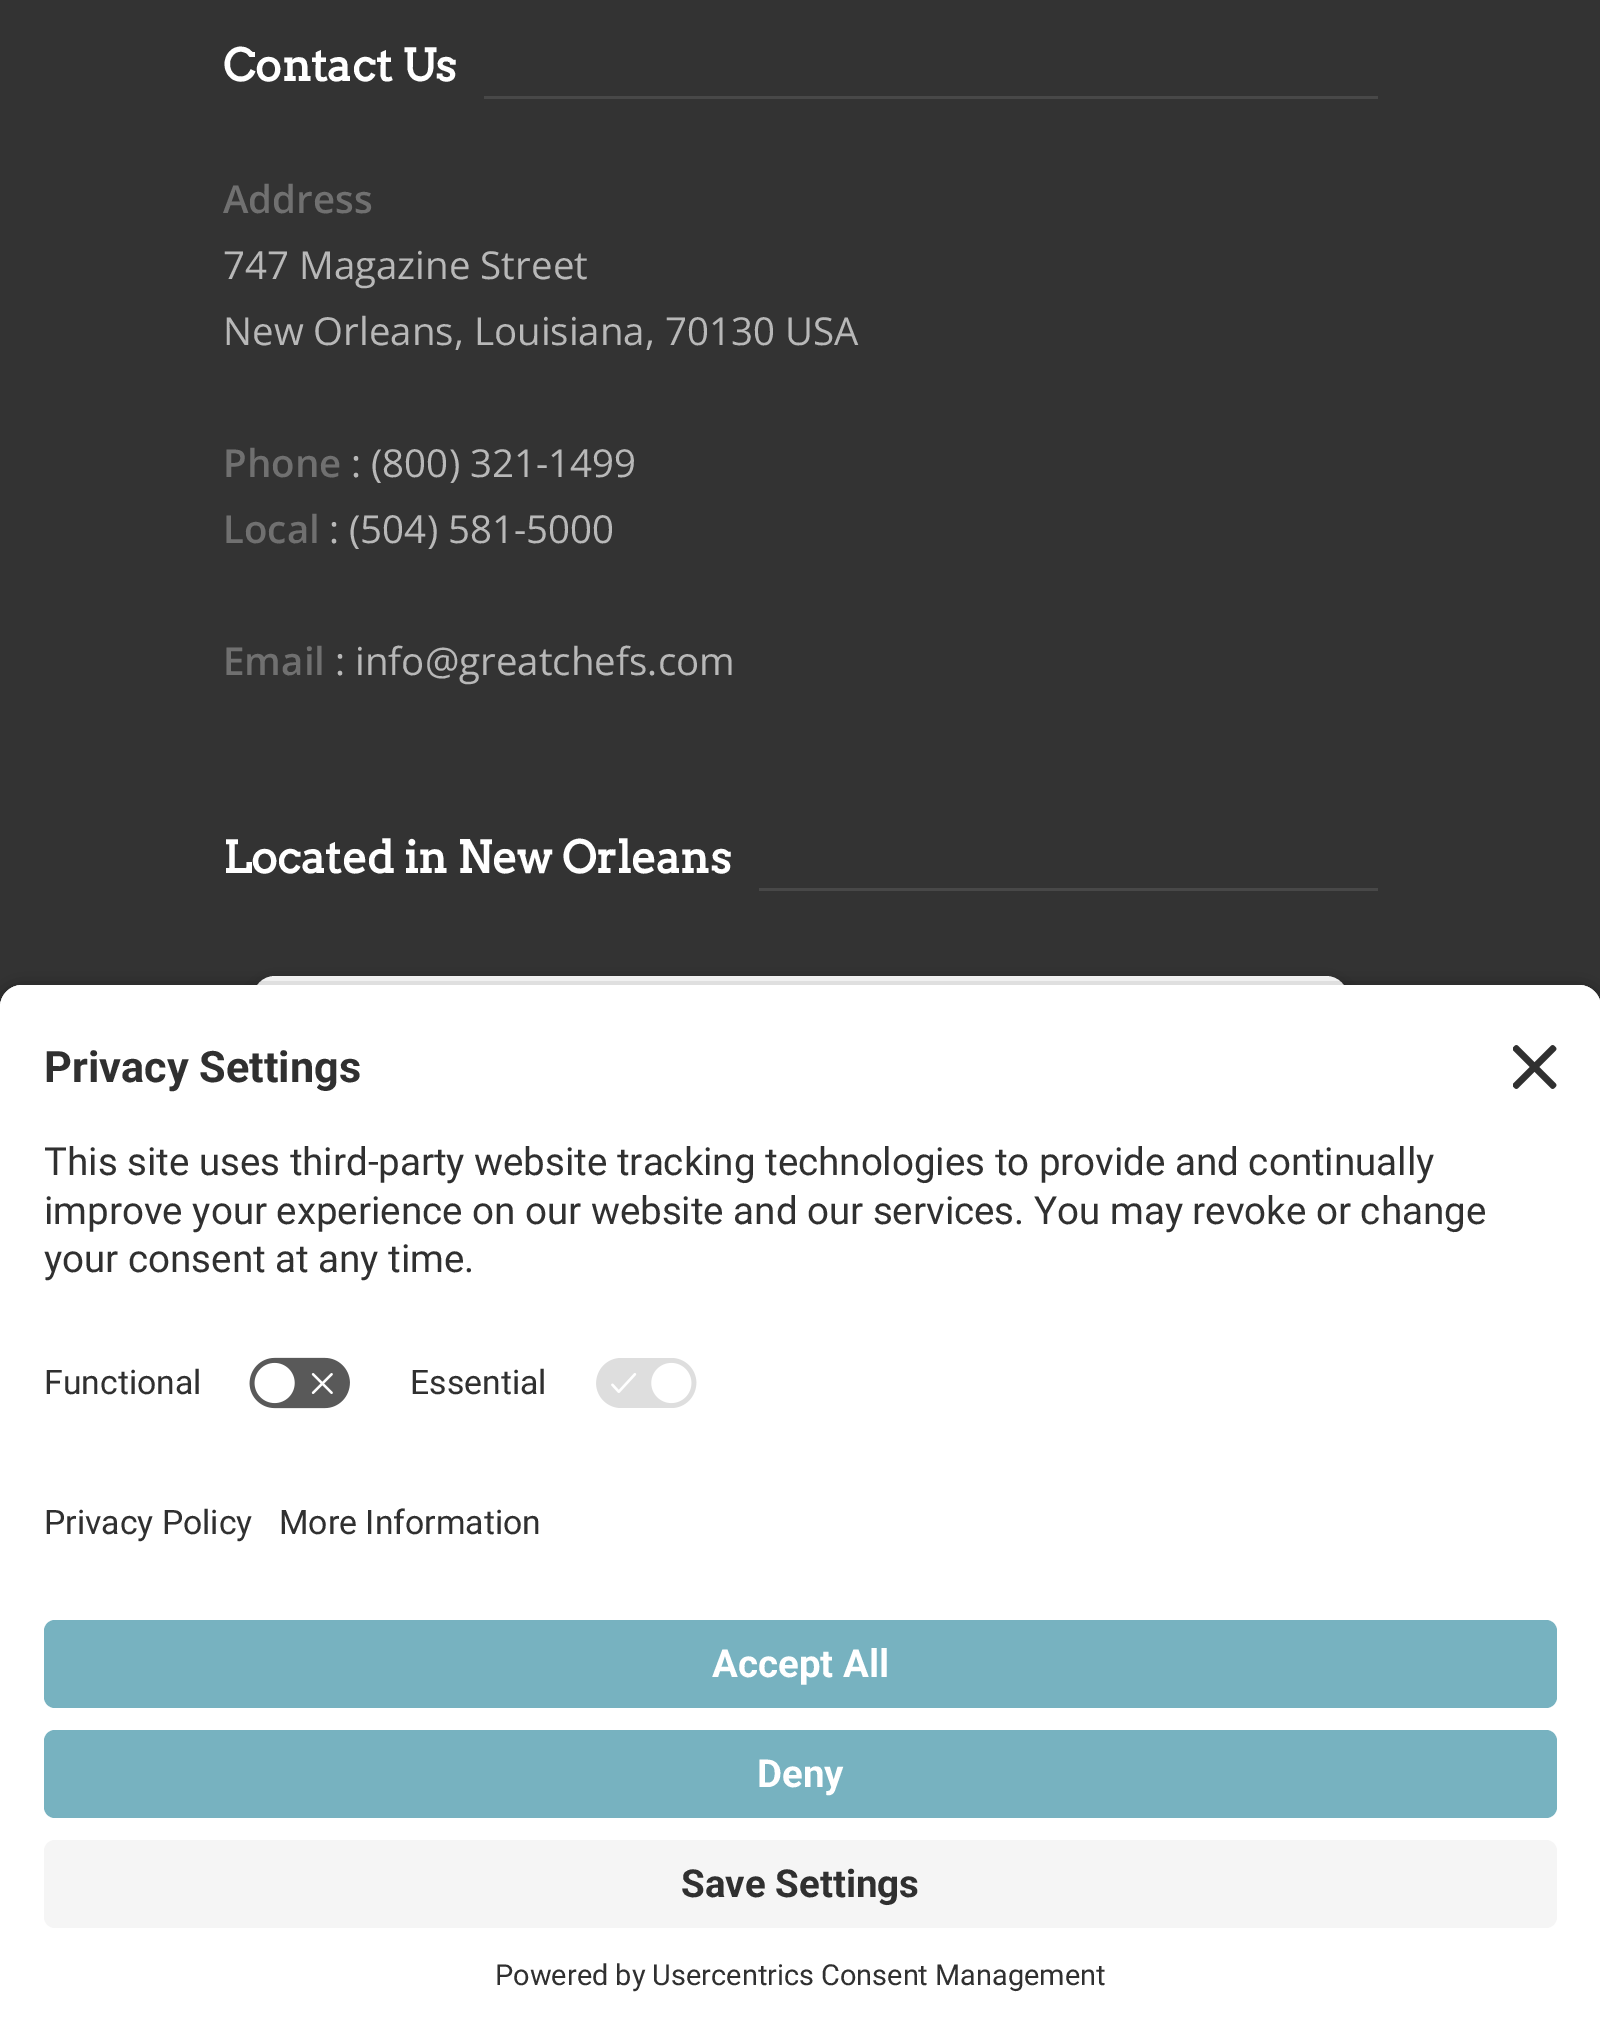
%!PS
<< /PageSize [1600 2036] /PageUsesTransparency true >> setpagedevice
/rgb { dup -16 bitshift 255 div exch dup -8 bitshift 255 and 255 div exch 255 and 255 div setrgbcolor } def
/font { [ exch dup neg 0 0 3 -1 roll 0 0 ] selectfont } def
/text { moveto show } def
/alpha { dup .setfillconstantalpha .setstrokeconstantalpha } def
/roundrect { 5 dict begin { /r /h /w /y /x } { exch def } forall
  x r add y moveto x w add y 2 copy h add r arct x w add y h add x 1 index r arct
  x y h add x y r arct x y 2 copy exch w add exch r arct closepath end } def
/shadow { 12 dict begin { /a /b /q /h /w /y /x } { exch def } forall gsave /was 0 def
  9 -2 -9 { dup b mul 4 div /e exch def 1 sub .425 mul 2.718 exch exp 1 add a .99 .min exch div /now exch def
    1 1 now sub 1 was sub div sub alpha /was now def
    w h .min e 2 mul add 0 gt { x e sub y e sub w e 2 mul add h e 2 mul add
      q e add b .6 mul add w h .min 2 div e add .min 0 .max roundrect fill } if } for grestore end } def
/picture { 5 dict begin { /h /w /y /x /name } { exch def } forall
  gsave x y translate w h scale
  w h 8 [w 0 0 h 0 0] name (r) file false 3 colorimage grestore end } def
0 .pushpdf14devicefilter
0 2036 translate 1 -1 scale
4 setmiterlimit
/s1 { /Arvo-Bold 44 font 16#FFFFFF rgb } def
/s2 { /OpenSans-SemiBold 38.5 font 16#707070 rgb } def
/s3 { /OpenSans-Regular 38.5 font 16#B8B8B8 rgb } def
/s4 { /Roboto-Bold 43.25 font 16#303030 rgb } def
/s5 { /Roboto-Regular 38.5 font 16#303030 rgb } def
/s6 { /Roboto-Regular 33.75 font 16#303030 rgb } def
/s7 { /Roboto-Bold 38.5 font 16#FFFFFF rgb } def
/s8 { /Roboto-Bold 38.5 font 16#303030 rgb } def
/s9 { /Roboto-Regular 28.9 font 16#303030 rgb } def
16#333333 rgb
0 0 1600 2036 rectfill
s1
(Contact Us) 223 81 text
16#484848 rgb
484 96 894 3 rectfill
s2
(Address) 223 213 text
s3
(747 Magazine Street) 223 279 text
(New Orleans, Louisiana, 70130 USA) 223 345 text
s2
(Phone) 223 477 text
s3
(: \(800\) 321-1499) 351 477 text
s2
(Local) 223 543 text
s3
(: \(504\) 581-5000) 329 543 text
s2
(Email) 223 675 text
s3
(: info@greatchefs.com) 335 675 text
s1
(Located in New Orleans) 223 873 text
16#484848 rgb
759 888 619 3 rectfill
16#000000 rgb
253 985 1095 849 22 8 0.5 shadow
16#FFFFFF rgb
253 976 1095 850 22 roundrect fill
16#000000 rgb
0 993 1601 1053 22 9.5 0.8 shadow
16#FFFFFF rgb
22 985 moveto 1579 985 lineto 1591 985 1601 995 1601 1007 curveto 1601 1460 lineto 0 1460 lineto 0 1007 lineto 0 995 10 985 22 985 curveto closepath fill
22 985 moveto 1579 985 lineto 1591 985 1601 995 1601 1007 curveto 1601 1339 lineto 0 1339 lineto 0 1007 lineto 0 995 10 985 22 985 curveto closepath fill
s4
(Privacy Settings) 44 1082 text
(pic1.raw) 1513 1045 44 44 picture
s5
(This site uses third-party website tracking technologies to provide and continually) 44 1175 text
(improve your experience on our website and our services. You may revoke or change) 44 1224 text
(your consent at any time.) 44 1272 text
s6
(Functional) 44 1394 text
(pic2.raw) 249 1357 101 52 picture
(Essential) 410 1394 text
(pic3.raw) 596 1358 101 50 picture
16#FFFFFF rgb
0 1460 1600 576 rectfill
s6
(Privacy Policy) 44 1534 text
(More Information) 279 1534 text
16#77B2C0 rgb
44 1620 1513 88 11 roundrect fill
s7
(Accept All) 712 1677 text
16#77B2C0 rgb
44 1730 1513 88 11 roundrect fill
s7
(Deny) 757 1787 text
16#F5F5F5 rgb
44 1840 1513 88 11 roundrect fill
s8
(Save Settings) 681 1897 text
s9
(Powered by Usercentrics Consent Management) 495 1985 text
.poppdf14devicefilter showpage
